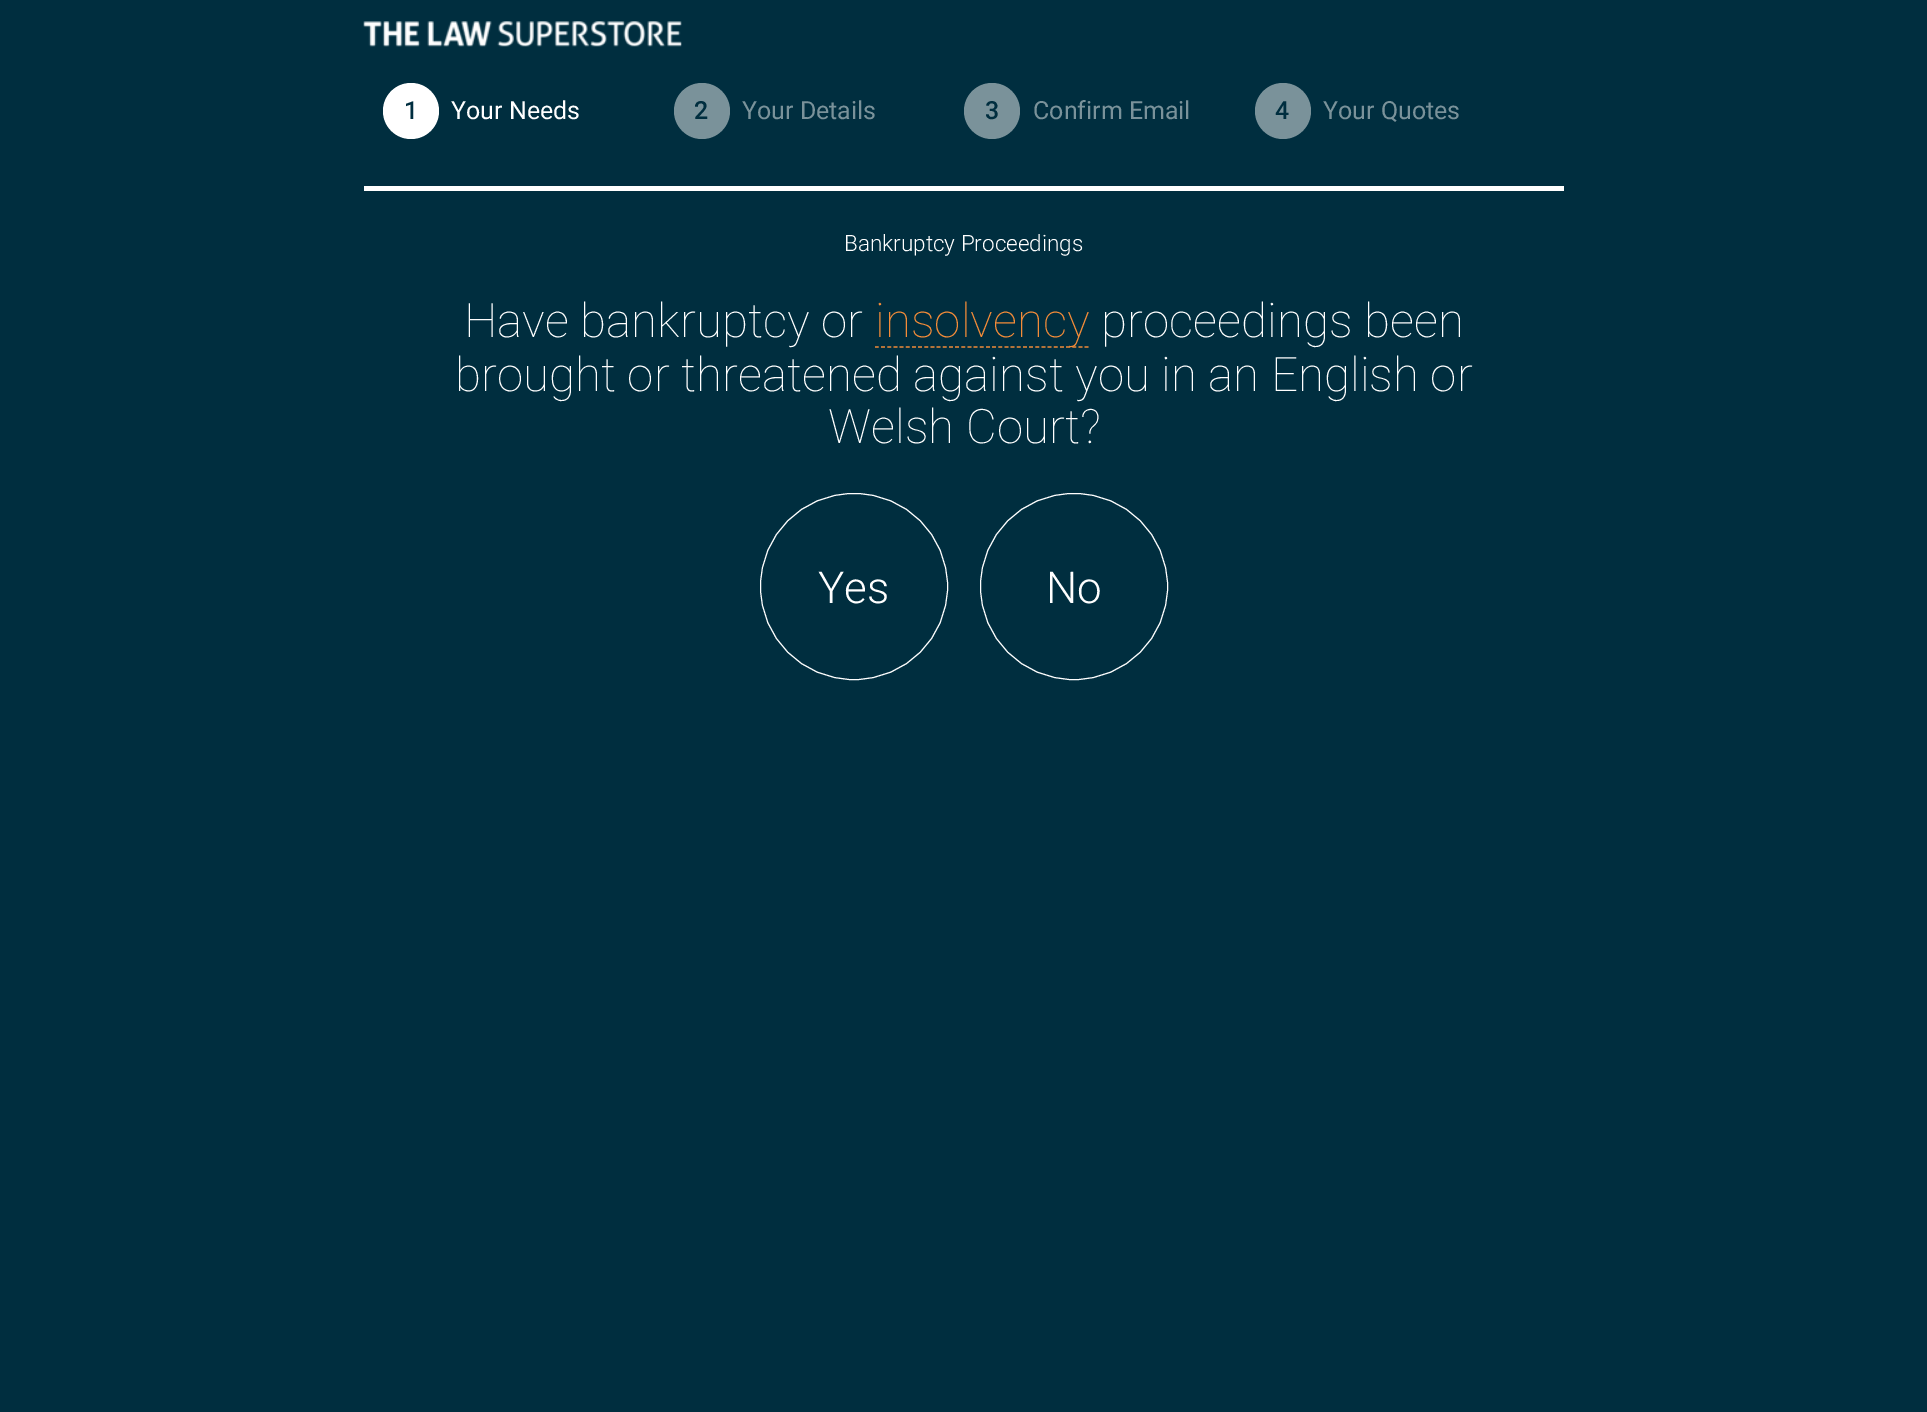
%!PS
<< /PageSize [1927 1412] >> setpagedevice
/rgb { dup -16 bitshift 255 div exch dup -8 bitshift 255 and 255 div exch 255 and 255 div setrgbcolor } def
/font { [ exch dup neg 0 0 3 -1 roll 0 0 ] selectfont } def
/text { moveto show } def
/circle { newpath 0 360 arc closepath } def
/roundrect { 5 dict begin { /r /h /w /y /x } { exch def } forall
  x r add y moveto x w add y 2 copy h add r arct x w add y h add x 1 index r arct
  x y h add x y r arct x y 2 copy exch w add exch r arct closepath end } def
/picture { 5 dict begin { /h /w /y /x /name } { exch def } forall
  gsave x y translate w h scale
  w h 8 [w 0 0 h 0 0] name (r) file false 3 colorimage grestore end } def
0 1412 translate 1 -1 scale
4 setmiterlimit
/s1 { /Roboto-Medium 25 font 16#002E3F rgb } def
/s2 { /Roboto-Regular 25 font 16#FFFFFF rgb } def
/s3 { /Roboto-Regular 25 font 16#7A929A rgb } def
/s4 { /Roboto-Light 22.5 font 16#FFFFFF rgb } def
/s5 { /Roboto-Thin 47.5 font 16#FFFFFF rgb } def
/s6 { /Roboto-Thin 47.5 font 16#F48C39 rgb } def
/s7 { /Roboto-Light 44 font 16#FFFFFF rgb } def
16#002E3F rgb
0 0 1927 1412 rectfill
(pic1.raw) 363 21 319 26 picture
16#FFFFFF rgb
411 111 28 circle fill
s1
(1) 404 119 text
s2
(Your Needs) 451 119 text
16#7A929A rgb
702 111 28 circle fill
s1
(2) 694 119 text
s3
(Your Details) 742 119 text
992 111 28 circle fill
s1
(3) 985 119 text
s3
(Confirm Email) 1033 119 text
1283 111 28 circle fill
s1
(4) 1275 119 text
s3
(Your Quotes) 1323 119 text
16#FFFFFF rgb
364 186 1200 5 rectfill
s4
(Bankruptcy Proceedings) 844 251 text
s5
(Have bankruptcy or) 464 337 text
16#F48C39 rgb
1.2 setlinewidth
[3.75 2.42] 0 setdash
875 347 moveto 1089 347 lineto stroke
(insolvency) 875 337 text
s5
(proceedings been) 1101 337 text
(brought or threatened against you in an English or) 455 391 text
(Welsh Court?) 828 443 text
1 setlinewidth
[] 0 setdash
760.5 493.5 187 186 93 roundrect stroke
s7
(Yes) 818 603 text
980.5 493.5 187 186 93 roundrect stroke
(No) 1046 603 text
showpage
